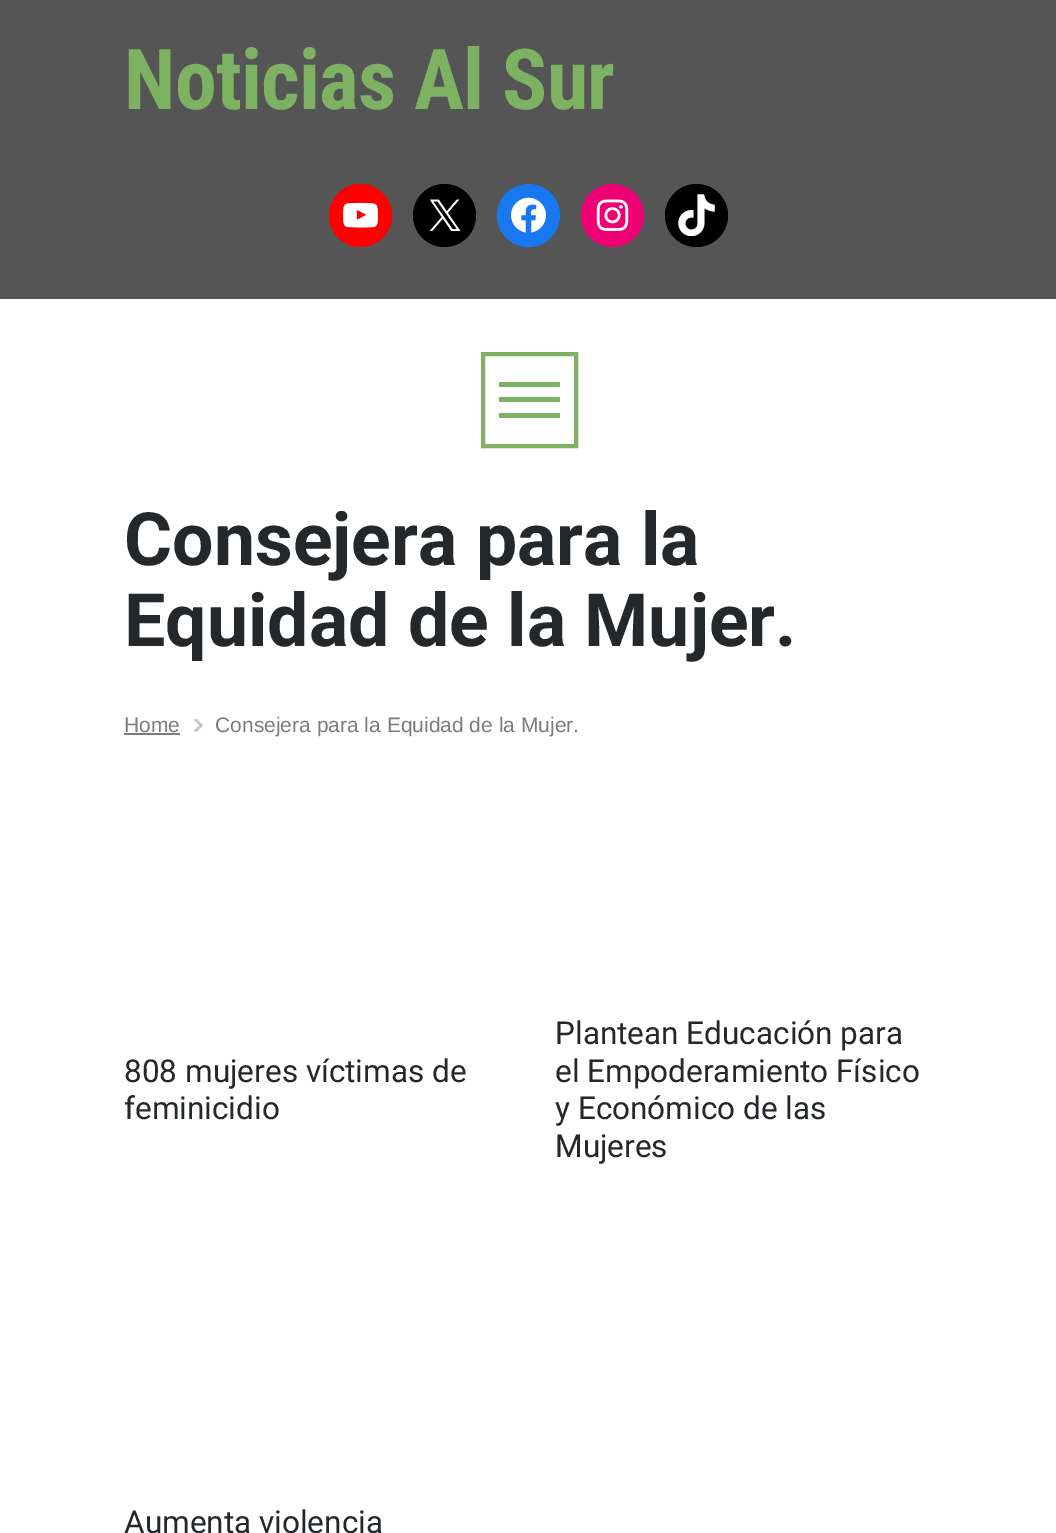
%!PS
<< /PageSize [1056 1533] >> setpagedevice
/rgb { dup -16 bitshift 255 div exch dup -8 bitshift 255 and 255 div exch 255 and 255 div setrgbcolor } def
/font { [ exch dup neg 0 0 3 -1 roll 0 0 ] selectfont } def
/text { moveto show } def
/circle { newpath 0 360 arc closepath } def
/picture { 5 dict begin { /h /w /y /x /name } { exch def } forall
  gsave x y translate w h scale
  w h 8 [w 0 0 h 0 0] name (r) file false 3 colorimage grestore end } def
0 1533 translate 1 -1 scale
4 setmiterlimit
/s1 { /Roboto-Bold 73.5 font 16#25282A rgb } def
/s2 { /LiberationSans-Regular 21 font 16#7C7C7C rgb } def
/s3 { /Roboto-Regular 31.5 font 16#25282A rgb } def
16#FFFFFF rgb
0 0 1056 1533 rectfill
16#555555 rgb
0 0 1056 299 rectfill
/RobotoCondensed-Bold 84 font
16#7DB262 rgb
124 109 moveto -0.8 0 (Noticias Al Sur) ashow
16#FF0000 rgb
360.5 215.5 31.5 circle fill
(pic1.raw) 343 202 35 26 picture
16#000000 rgb
444.5 215.5 31.5 circle fill
(pic2.raw) 429 199 32 32 picture
16#1778F2 rgb
528.5 215.5 31.5 circle fill
(pic3.raw) 511 197 35 36 picture
16#F00075 rgb
612.5 215.5 31.5 circle fill
(pic4.raw) 596 199 33 32 picture
16#000000 rgb
696.5 215.5 31.5 circle fill
(pic5.raw) 678 194 37 42 picture
16#7DB262 rgb
4 setlinewidth
483 354 93 92 rectstroke
499 382 61 5 rectfill
499 397 61 5 rectfill
499 413 61 5 rectfill
s1
(Consejera para la) 124 565 text
(Equidad de la Mujer.) 124 646 text
s2
(Home) 124 732 text
124 733 56 2 rectfill
(pic6.raw) 194 719 9 13 picture
(Consejera para la Equidad de la Mujer.) 215 732 text
s3
(808 mujeres víctimas de) 124 1082 text
(feminicidio) 124 1119 text
(Aumenta violencia) 124 1533 text
(Plantean Educación para) 555 1044 text
(el Empoderamiento Físico) 555 1082 text
(y Económico de las) 555 1119 text
(Mujeres) 555 1157 text
showpage
